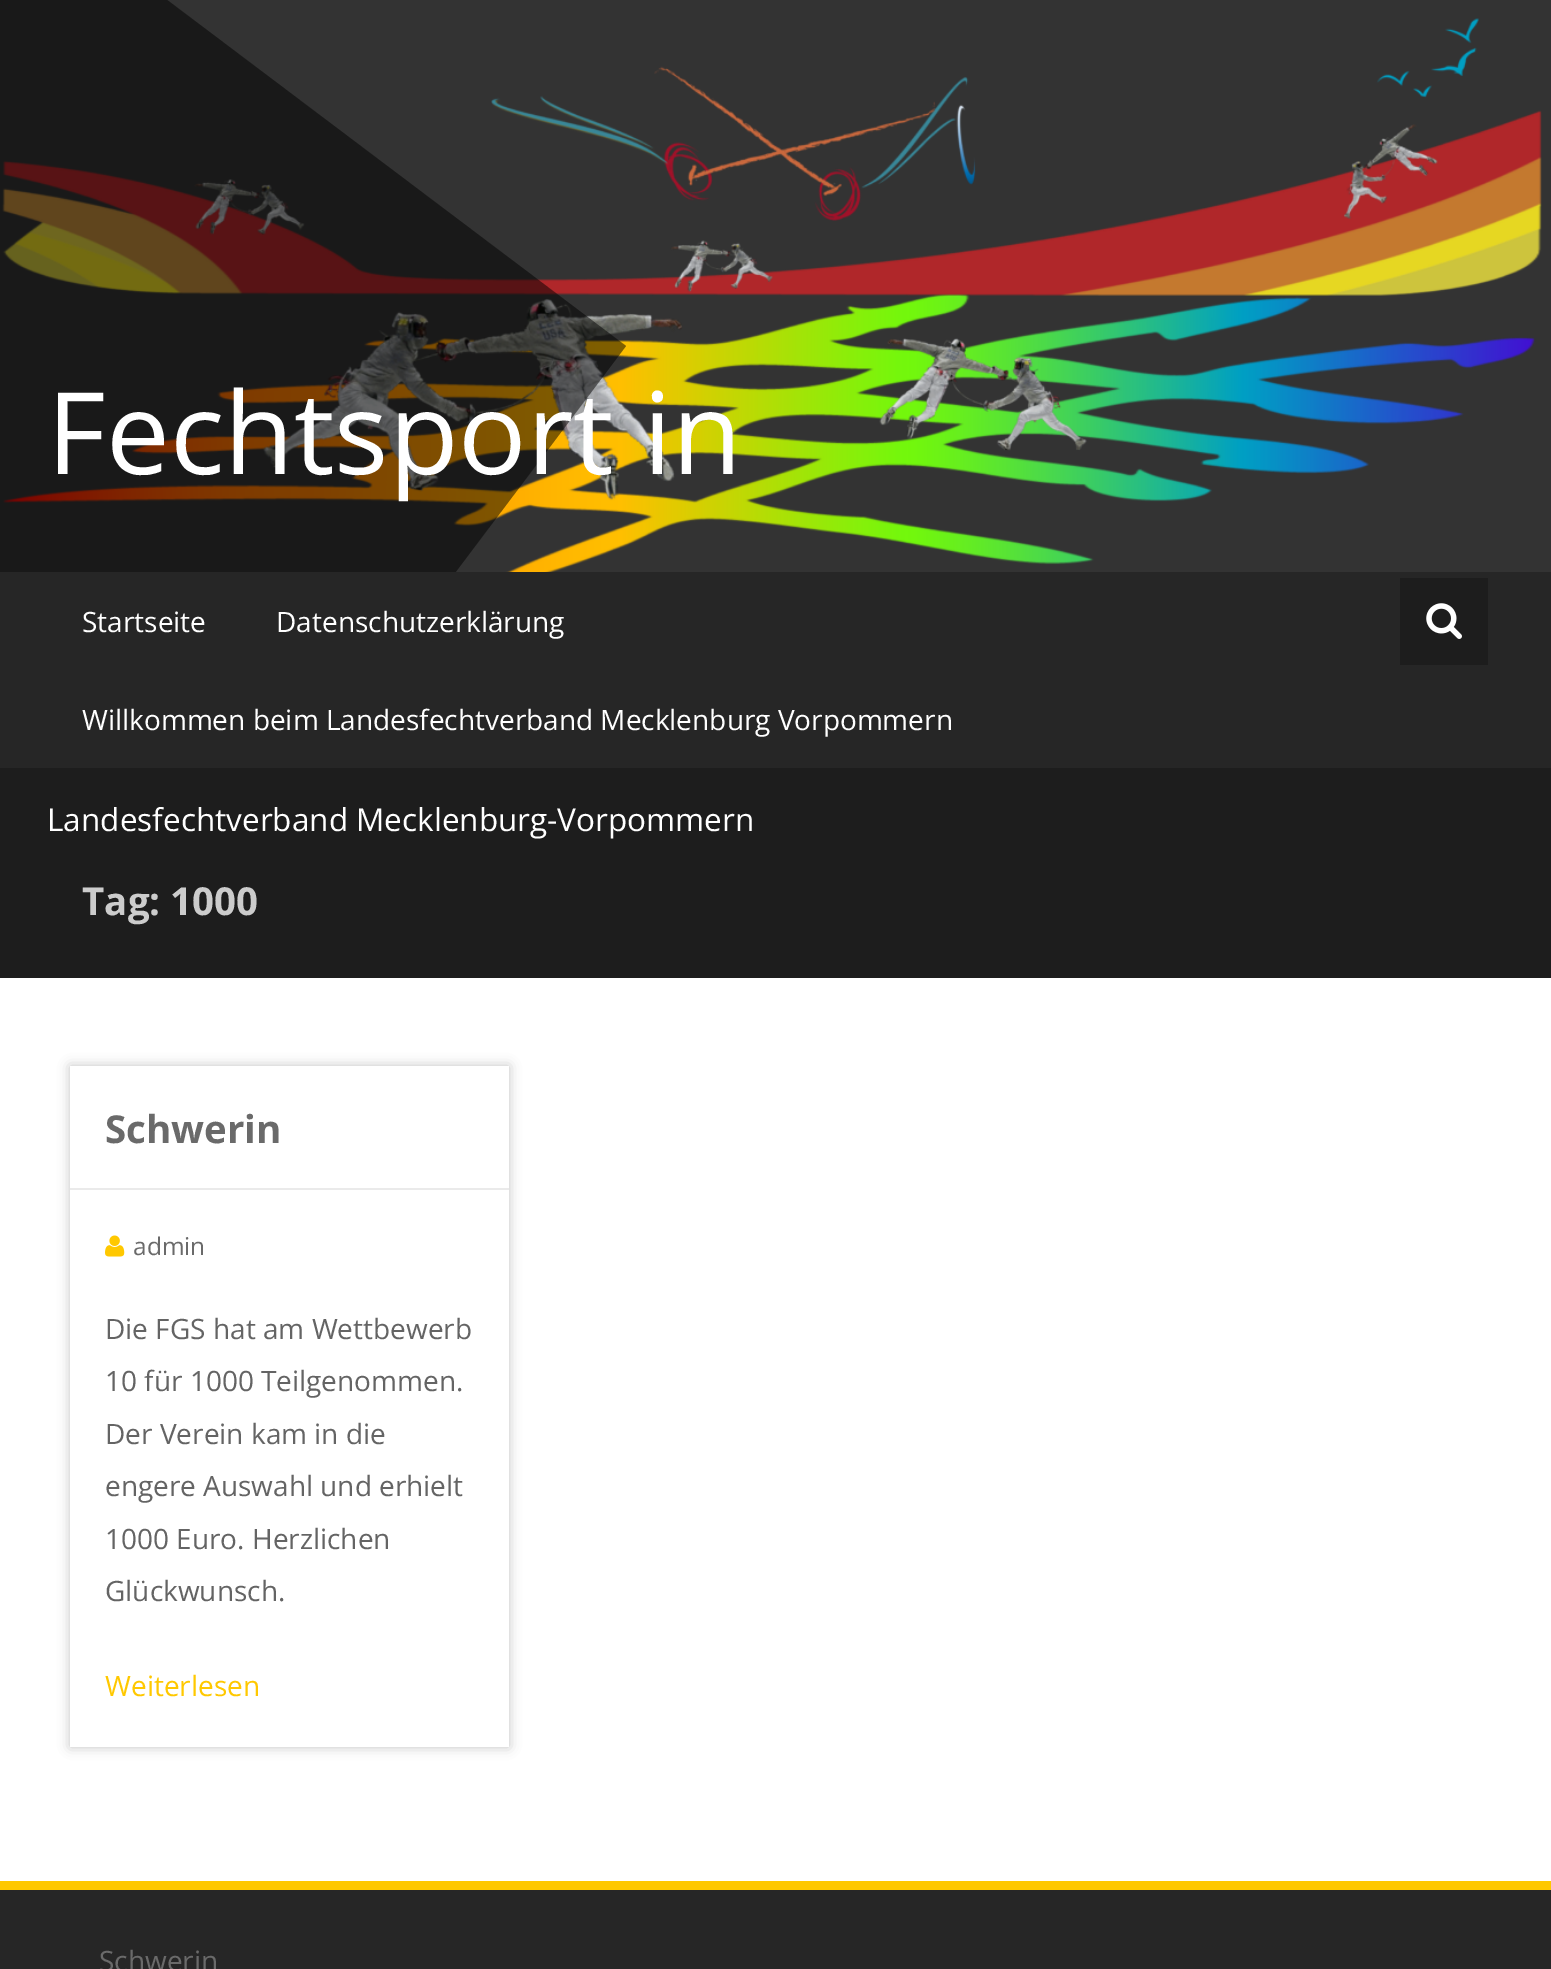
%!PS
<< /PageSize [1551 1969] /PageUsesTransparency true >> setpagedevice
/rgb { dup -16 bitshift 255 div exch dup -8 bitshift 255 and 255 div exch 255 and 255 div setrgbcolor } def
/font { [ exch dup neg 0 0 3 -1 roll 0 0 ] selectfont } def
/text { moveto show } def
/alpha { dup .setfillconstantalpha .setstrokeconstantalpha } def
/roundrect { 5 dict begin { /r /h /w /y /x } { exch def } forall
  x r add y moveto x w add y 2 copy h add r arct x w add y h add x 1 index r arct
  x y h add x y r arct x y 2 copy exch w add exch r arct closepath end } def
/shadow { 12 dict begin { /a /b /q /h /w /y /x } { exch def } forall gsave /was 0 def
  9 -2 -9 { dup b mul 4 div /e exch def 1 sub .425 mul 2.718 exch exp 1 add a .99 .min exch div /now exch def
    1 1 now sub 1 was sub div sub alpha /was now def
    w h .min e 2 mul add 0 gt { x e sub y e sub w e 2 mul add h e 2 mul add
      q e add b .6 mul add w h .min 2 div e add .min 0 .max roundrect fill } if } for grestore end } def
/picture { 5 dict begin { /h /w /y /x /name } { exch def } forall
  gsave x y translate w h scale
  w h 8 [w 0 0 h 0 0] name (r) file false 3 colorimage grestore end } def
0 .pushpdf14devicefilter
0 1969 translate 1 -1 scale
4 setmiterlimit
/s1 { /OpenSans-Regular 113.75 font 16#FFFFFF rgb } def
/s2 { /OpenSans-Regular 31.5 font 16#FFFFFF rgb } def
/s3 { /OpenSans-Regular 28 font 16#FFFFFF rgb } def
/s4 { /OpenSans-Bold 38.5 font 16#CCCCCC rgb } def
/s5 { /OpenSans-Bold 38.5 font 16#6A6A6A rgb } def
/s6 { /OpenSans-Regular 24.5 font 16#6A6A6A rgb } def
/s7 { /OpenSans-Regular 28 font 16#646464 rgb } def
/s8 { /OpenSans-Regular 28 font 16#FFC800 rgb } def
/s9 { /OpenSans-Regular 28 font 16#6A6A6A rgb } def
16#FFFFFF rgb
0 0 1551 1969 rectfill
16#333333 rgb
0 0 1551 572 rectfill
(pic1.raw) 2 18 1540 554 picture
gsave
0 0 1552 572 rectclip
0.5 alpha
16#000000 rgb
-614 -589 moveto 626 346 lineto -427 1743 lineto -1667 809 lineto closepath fill
grestore
s1
(Fechtsport in) 47 474 text
16#1D1D1D rgb
0 768 1551 210 rectfill
s2
(Landesfechtverband Mecklenburg-Vorpommern) 47 831 text
16#262626 rgb
0 572 1551 196 rectfill
s3
(Startseite) 82 632 text
(Datenschutzerklärung) 276 632 text
(Willkommen beim Landesfechtverband Mecklenburg Vorpommern) 82 730 text
16#1D1D1D rgb
1400 578 88 87 rectfill
(pic2.raw) 1426 603 36 36 picture
s4
(Tag: 1000) 82 915 text
16#C2C2C2 rgb
70 1066 439 681 0 6 1 shadow
16#FFFFFF rgb
70 1066 439 681 rectfill
16#EAEAEA rgb
70 1188 439 2 rectfill
s5
(Schwerin) 105 1143 text
(pic3.raw) 105 1235 20 22 picture
s6
(admin) 133 1255 text
s7
(Die FGS hat am Wettbewerb) 105 1339 text
(10 für 1000 Teilgenommen.) 105 1391 text
(Der Verein kam in die) 105 1444 text
(engere Auswahl und erhielt) 105 1496 text
(1000 Euro. Herzlichen) 105 1549 text
(Glückwunsch.) 105 1601 text
s8
(Weiterlesen) 105 1696 text
16#262626 rgb
0 1890 1551 79 rectfill
16#FFC800 rgb
0 1881 1551 9 rectfill
s9
(Schwerin) 99 1971 text
.poppdf14devicefilter showpage
